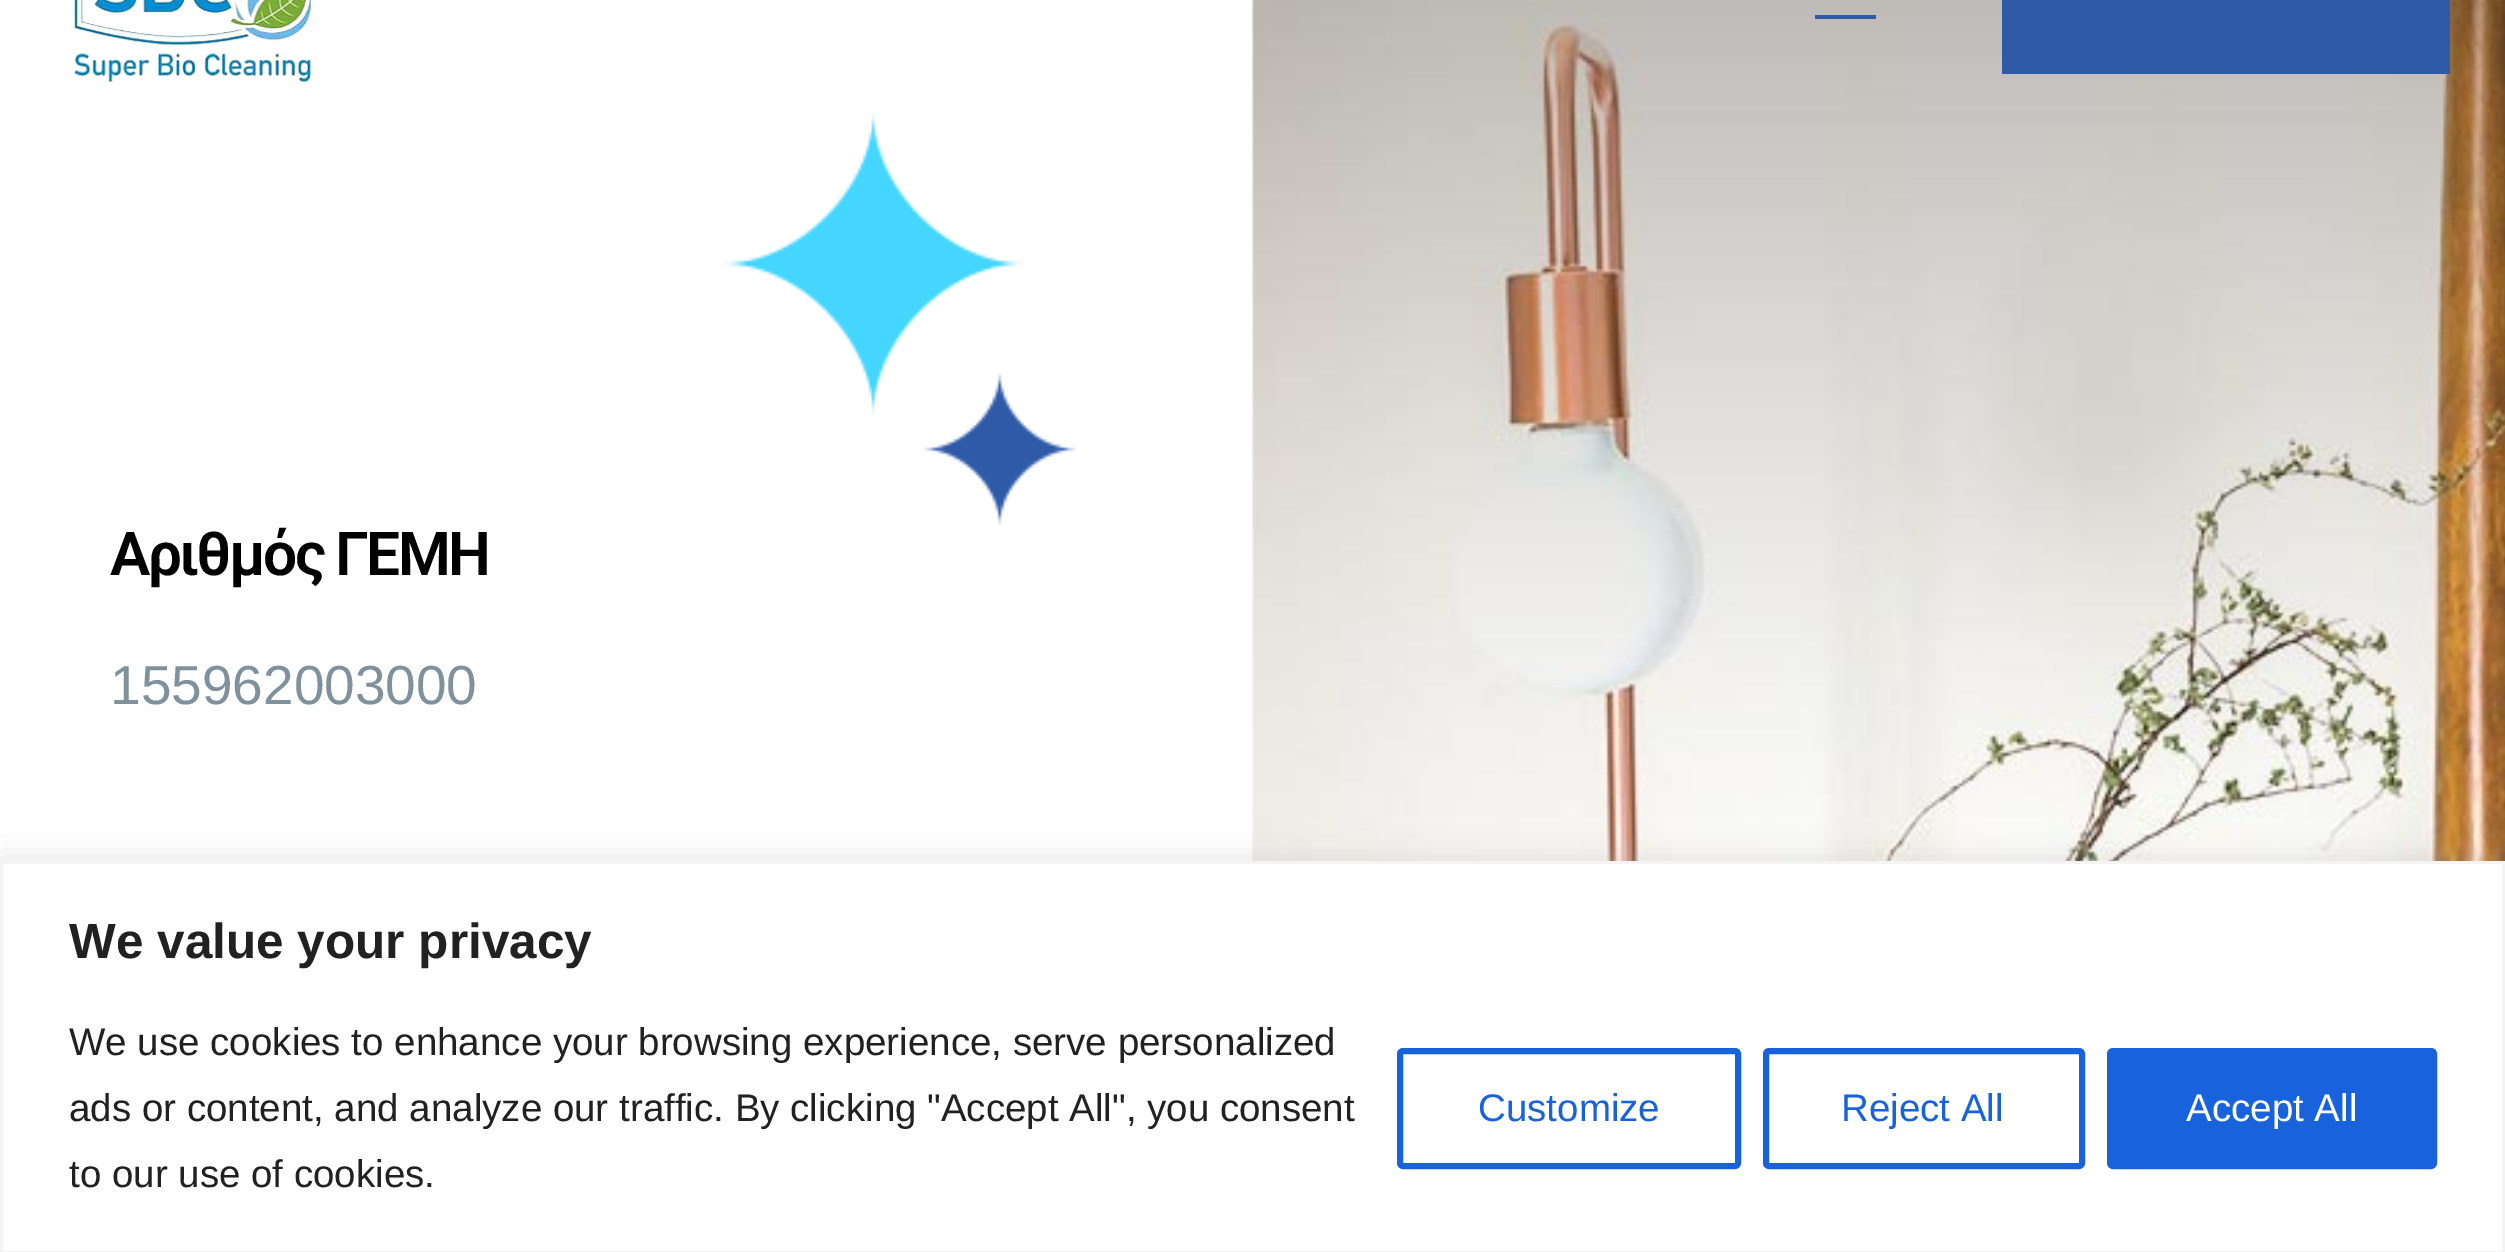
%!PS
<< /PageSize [2505 1252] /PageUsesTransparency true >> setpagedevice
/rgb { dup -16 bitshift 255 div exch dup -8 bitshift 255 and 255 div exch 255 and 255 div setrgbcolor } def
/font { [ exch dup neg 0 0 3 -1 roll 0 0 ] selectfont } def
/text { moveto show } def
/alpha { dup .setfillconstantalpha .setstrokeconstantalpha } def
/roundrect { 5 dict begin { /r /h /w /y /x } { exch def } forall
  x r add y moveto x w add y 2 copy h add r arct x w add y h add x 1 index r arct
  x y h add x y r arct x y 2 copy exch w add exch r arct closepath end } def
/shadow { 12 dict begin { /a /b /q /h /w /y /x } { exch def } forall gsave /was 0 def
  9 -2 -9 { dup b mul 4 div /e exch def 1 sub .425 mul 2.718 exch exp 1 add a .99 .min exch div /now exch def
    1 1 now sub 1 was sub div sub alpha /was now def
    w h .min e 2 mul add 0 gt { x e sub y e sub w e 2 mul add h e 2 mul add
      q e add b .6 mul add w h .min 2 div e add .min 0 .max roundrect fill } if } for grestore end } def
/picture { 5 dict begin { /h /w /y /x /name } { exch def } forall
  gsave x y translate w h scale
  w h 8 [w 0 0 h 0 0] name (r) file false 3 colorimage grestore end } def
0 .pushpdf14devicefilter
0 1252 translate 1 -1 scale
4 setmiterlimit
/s1 { /LiberationSans-Regular 55 font 16#80919D rgb } def
/s2 { /LiberationSans-Bold 49.5 font 16#212121 rgb } def
/s3 { /LiberationSans-Regular 38.5 font 16#212121 rgb } def
/s4 { /LiberationSans-Regular 38.5 font 16#1863DC rgb } def
/s5 { /LiberationSans-Regular 38.5 font 16#FFFFFF rgb } def
16#FFFFFF rgb
0 0 2505 1252 rectfill
(pic1.raw) 74 0 238 82 picture
(pic2.raw) 1251 0 1254 861 picture
16#2E5AA8 rgb
1815 15 61 4 rectfill
2002 0 448 74 rectfill
(pic3.raw) 723 112 353 413 picture
/Roboto-SemiBold 60.5 font
16#000000 rgb
110 575 moveto -2.75 0 (Αριθμός ΓΕΜΗ) ashow
s1
(155962003000) 110 704 text
16#ACABAB rgb
0 858 2505 393 0 14 0.3 shadow
16#FFFFFF rgb
1.5 862.5 moveto 2503.5 862.5 lineto 2503.5 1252.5 lineto 1.5 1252.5 lineto closepath gsave fill grestore
16#F4F4F4 rgb
3 setlinewidth
stroke
s2
(We value your privacy) 69 958 text
s3
(We use cookies to enhance your browsing experience, serve personalized) 69 1055 text
(ads or content, and analyze our traffic. By clicking "Accept All", you consent) 69 1121 text
(to our use of cookies.) 69 1187 text
16#1863DC rgb
6 setlinewidth
1400 1051 338 115 3 roundrect stroke
(Customize) 1478 1121 text
1766 1051 316 115 3 roundrect stroke
(Reject All) 1841 1121 text
2110 1051 324 115 3 roundrect gsave fill grestore
stroke
s5
(Accept All) 2186 1121 text
.poppdf14devicefilter showpage
